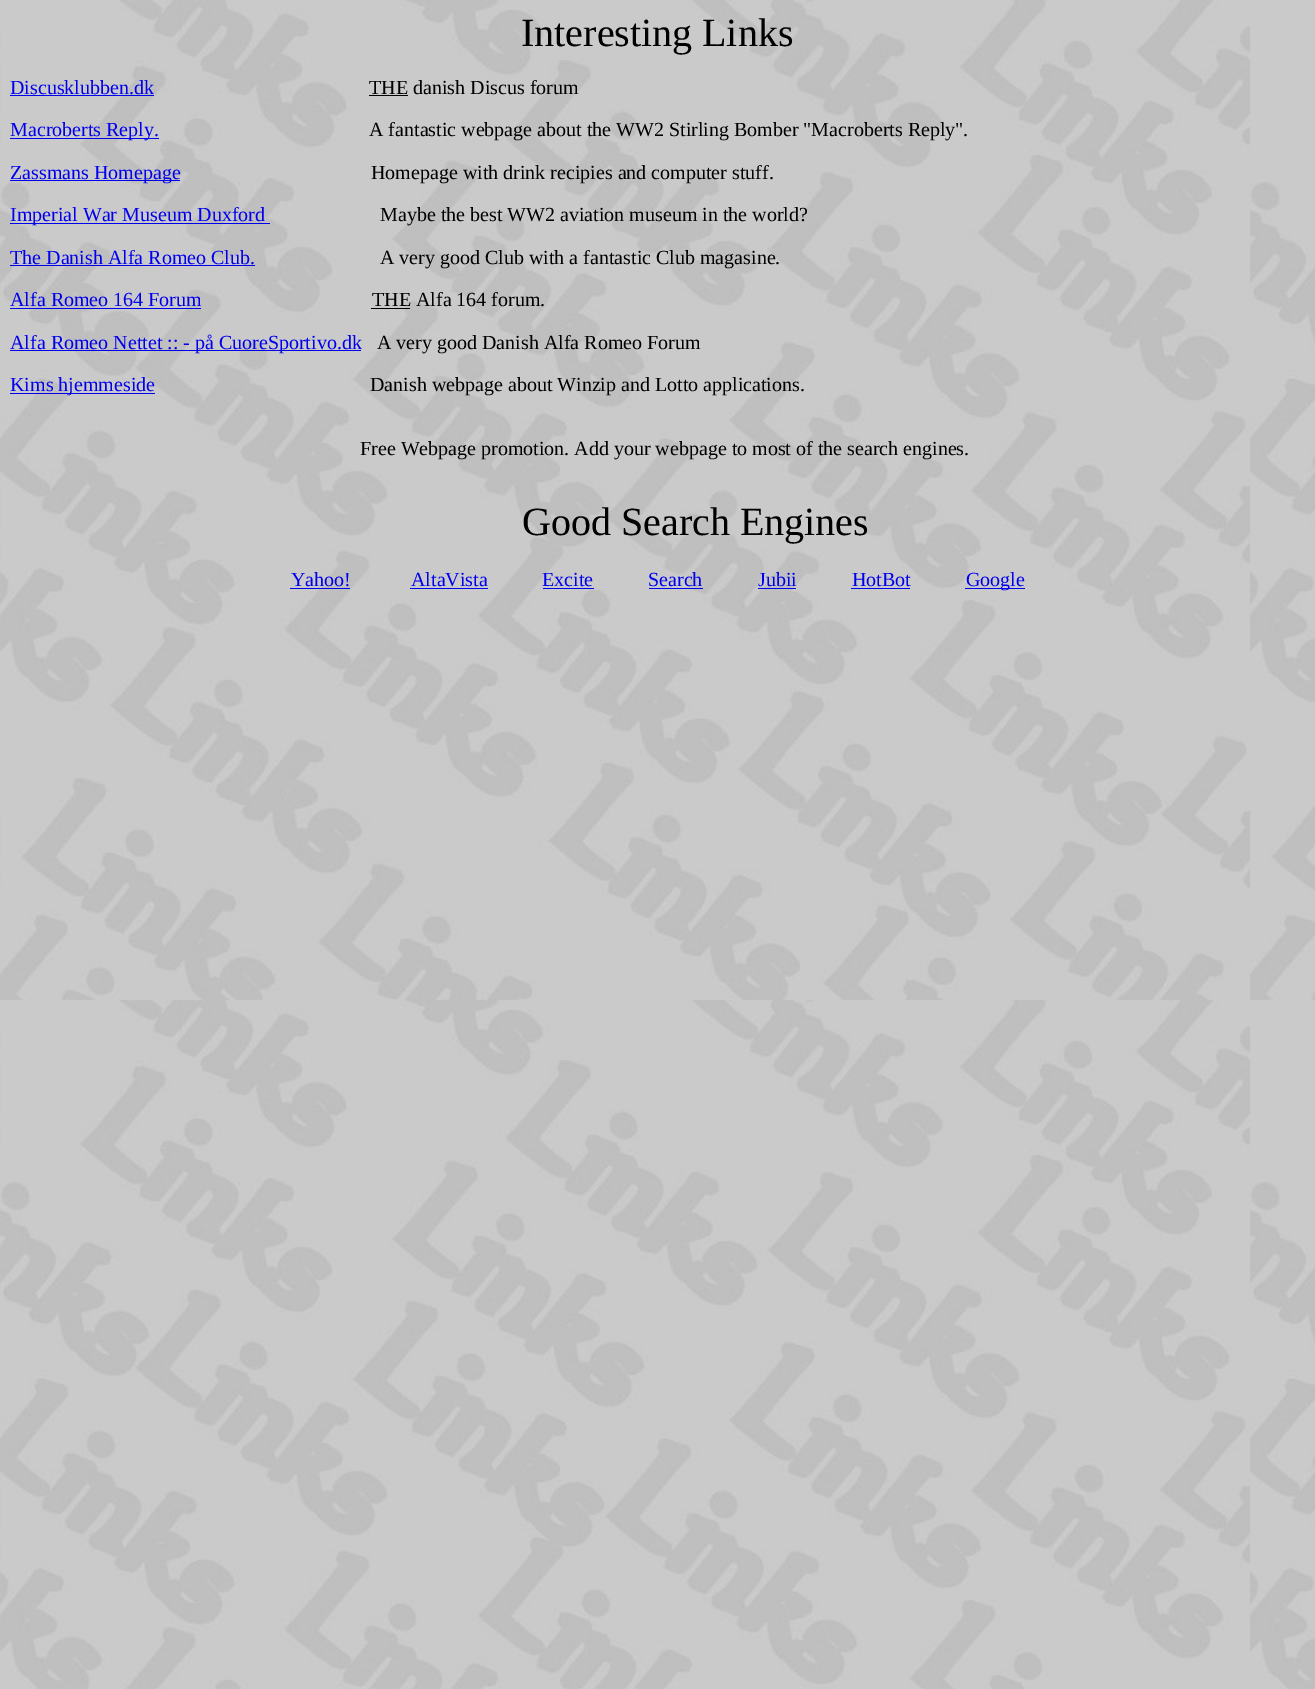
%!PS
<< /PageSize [1315 1689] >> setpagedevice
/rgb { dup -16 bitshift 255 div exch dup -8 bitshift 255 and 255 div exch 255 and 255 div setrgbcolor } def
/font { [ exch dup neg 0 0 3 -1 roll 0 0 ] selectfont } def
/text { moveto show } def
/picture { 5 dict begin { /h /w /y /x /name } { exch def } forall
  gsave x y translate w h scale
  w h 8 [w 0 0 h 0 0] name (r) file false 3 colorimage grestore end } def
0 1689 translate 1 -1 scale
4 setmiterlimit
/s1 { /LiberationSerif-Regular 40 font 16#000000 rgb } def
/s2 { /LiberationSerif-Regular 20 font 16#0000EE rgb } def
/s3 { /LiberationSerif-Regular 20 font 16#000000 rgb } def
16#FFFFFF rgb
0 0 1315 1689 rectfill
(pic1.raw) 0 0 1315 1689 picture
s1
(Interesting Links) 521 46 text
s2
(Discusklubben.dk) 10 94 text
10 95 144 1 rectfill
s3
(THE danish Discus forum) 369 94 text
369 95 39 1 rectfill
16#0000EE rgb
10 138 149 1 rectfill
(Macroberts Reply.) 10 136 text
s3
(A fantastic webpage about the WW2 Stirling Bomber "Macroberts Reply".) 369 136 text
16#0000EE rgb
10 180 170 1 rectfill
(Zassmans Homepage) 10 179 text
s3
(Homepage with drink recipies and computer stuff.) 371 179 text
16#0000EE rgb
10 223 260 1 rectfill
(Imperial War Museum Duxford) 10 221 text
s3
(Maybe the best WW2 aviation museum in the world?) 380 221 text
s2
(The Danish Alfa Romeo Club.) 10 264 text
10 265 245 1 rectfill
s3
(A very good Club with a fantastic Club magasine.) 380 264 text
s2
(Alfa Romeo 164 Forum) 10 306 text
10 308 191 1 rectfill
s3
(THE Alfa 164 forum.) 372 306 text
371 308 39 1 rectfill
16#0000EE rgb
10 350 351 1 rectfill
(Alfa Romeo Nettet :: - på CuoreSportivo.dk) 10 349 text
s3
(A very good Danish Alfa Romeo Forum) 377 349 text
16#0000EE rgb
10 393 145 1 rectfill
(Kims hjemmeside) 10 391 text
s3
(Danish webpage about Winzip and Lotto applications.) 370 391 text
(Free Webpage promotion. Add your webpage to most of the search engines.) 360 455 text
s1
(Good Search Engines) 522 535 text
s2
(Yahoo!) 291 586 text
290 588 60 1 rectfill
(AltaVista) 411 586 text
410 588 78 1 rectfill
(Excite) 542 586 text
543 588 51 1 rectfill
(Search) 648 586 text
649 588 54 1 rectfill
(Jubii) 758 586 text
758 588 38 1 rectfill
(HotBot) 852 586 text
851 588 59 1 rectfill
965 588 60 1 rectfill
(Google) 966 586 text
showpage
